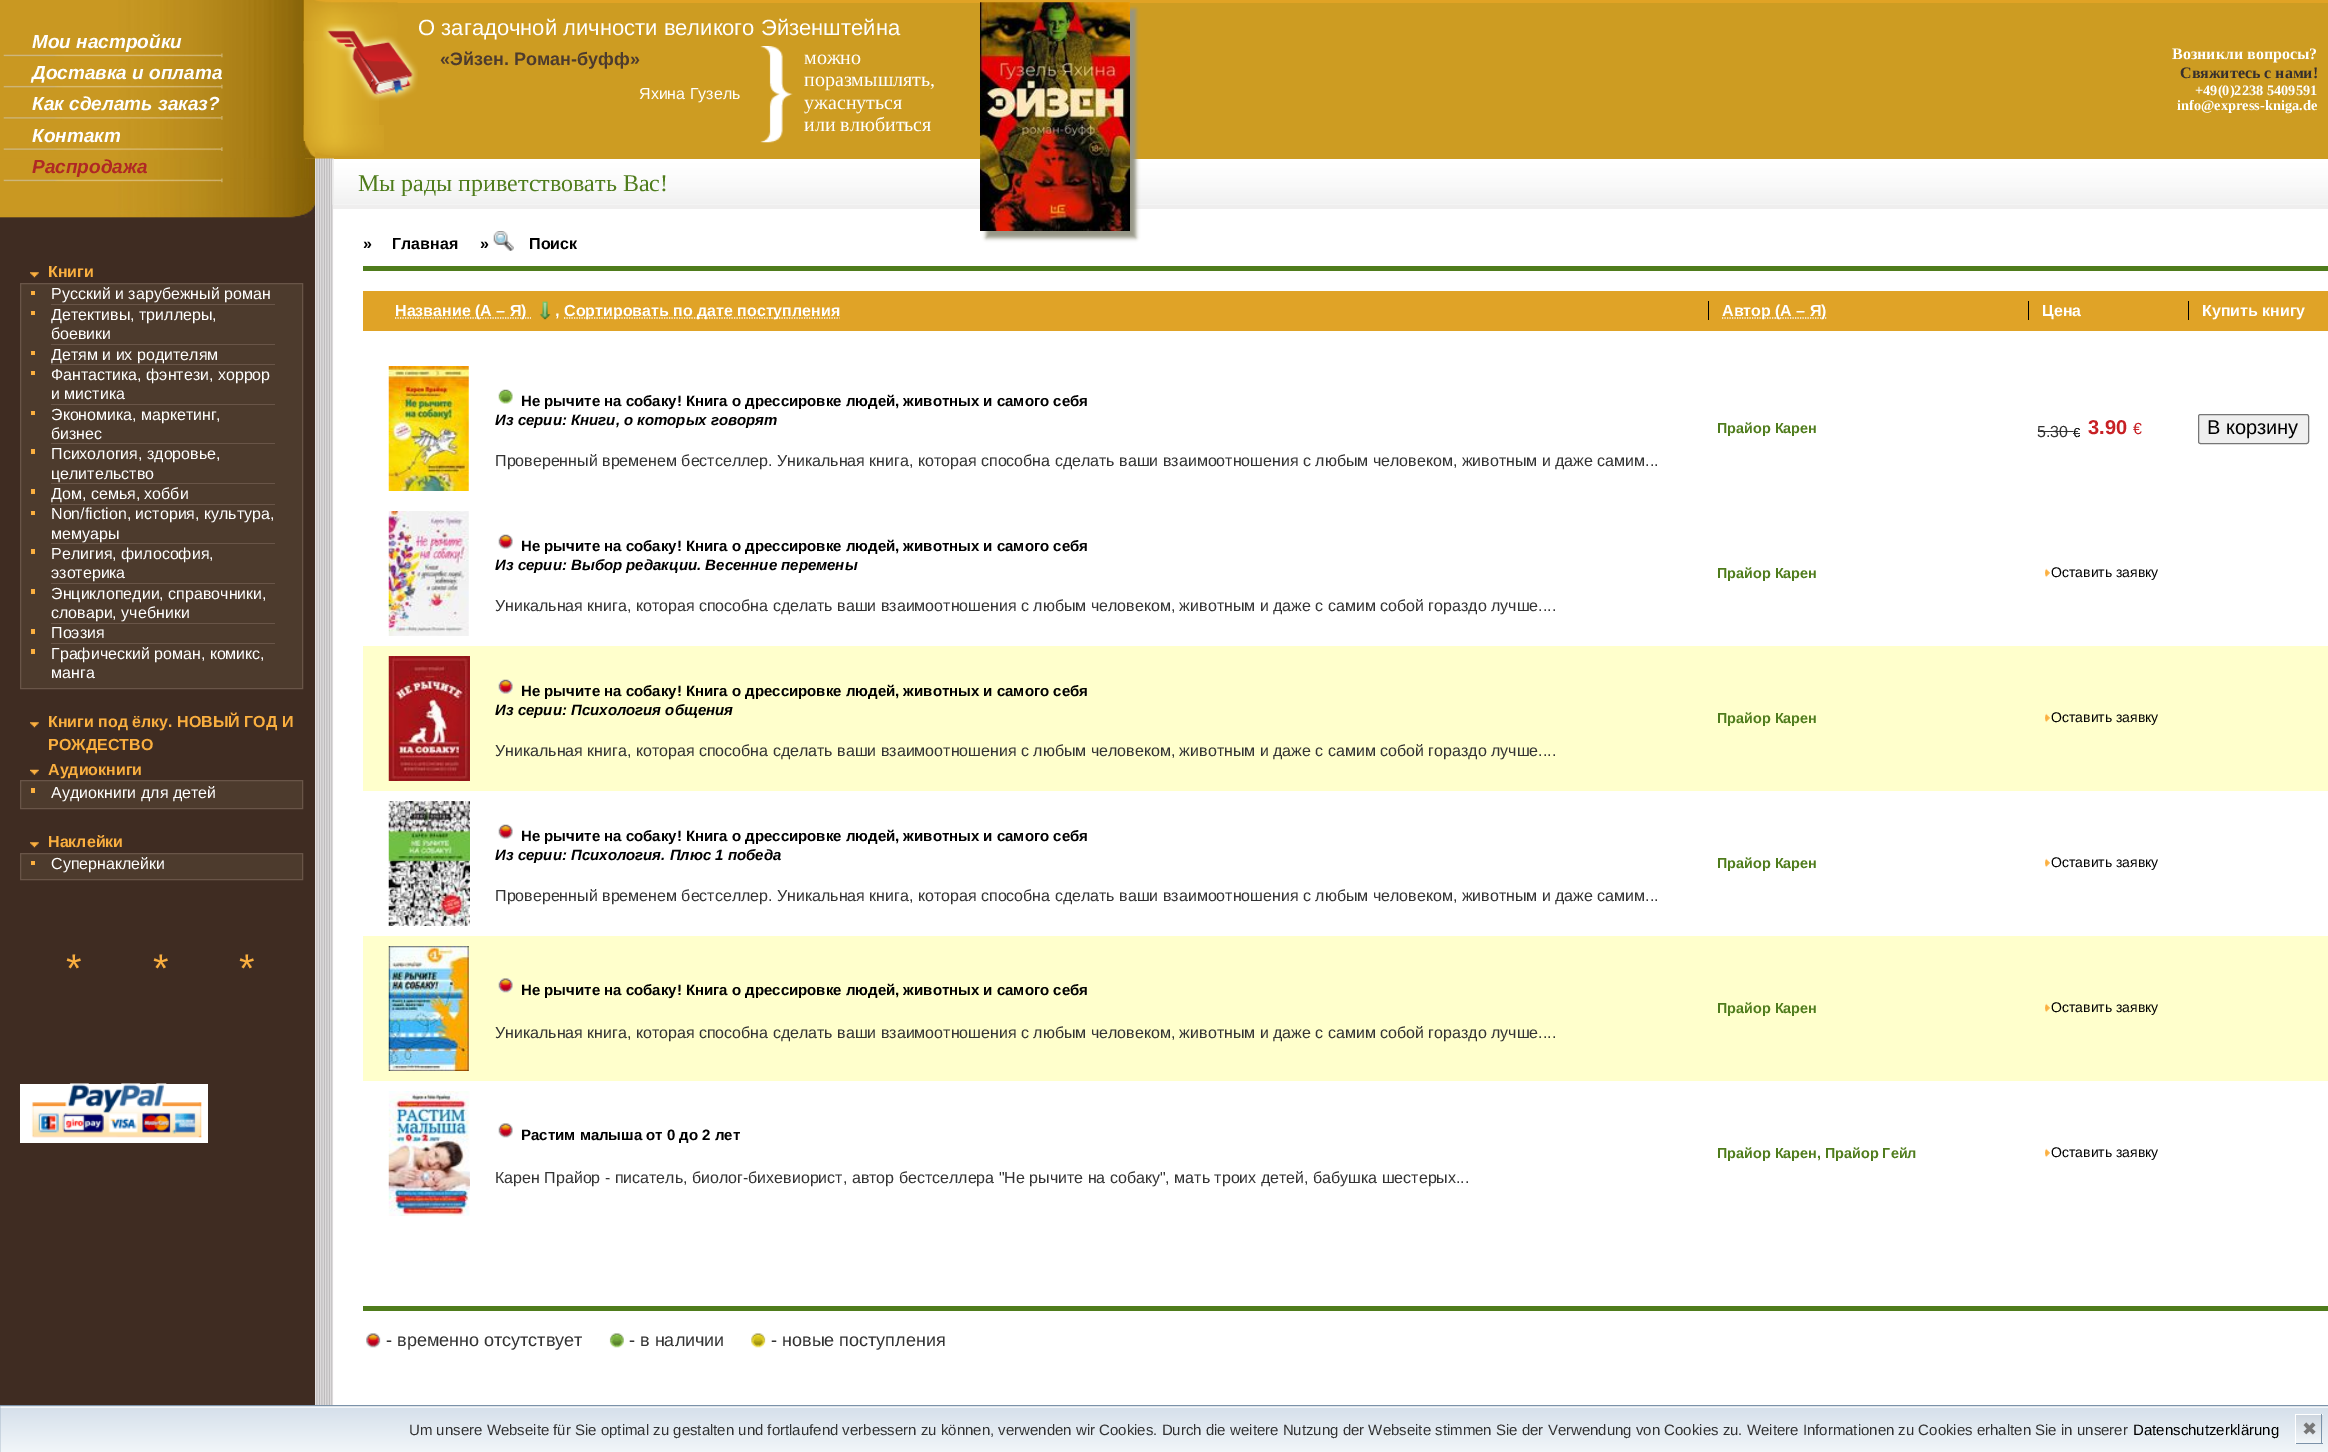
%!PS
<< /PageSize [2328 1452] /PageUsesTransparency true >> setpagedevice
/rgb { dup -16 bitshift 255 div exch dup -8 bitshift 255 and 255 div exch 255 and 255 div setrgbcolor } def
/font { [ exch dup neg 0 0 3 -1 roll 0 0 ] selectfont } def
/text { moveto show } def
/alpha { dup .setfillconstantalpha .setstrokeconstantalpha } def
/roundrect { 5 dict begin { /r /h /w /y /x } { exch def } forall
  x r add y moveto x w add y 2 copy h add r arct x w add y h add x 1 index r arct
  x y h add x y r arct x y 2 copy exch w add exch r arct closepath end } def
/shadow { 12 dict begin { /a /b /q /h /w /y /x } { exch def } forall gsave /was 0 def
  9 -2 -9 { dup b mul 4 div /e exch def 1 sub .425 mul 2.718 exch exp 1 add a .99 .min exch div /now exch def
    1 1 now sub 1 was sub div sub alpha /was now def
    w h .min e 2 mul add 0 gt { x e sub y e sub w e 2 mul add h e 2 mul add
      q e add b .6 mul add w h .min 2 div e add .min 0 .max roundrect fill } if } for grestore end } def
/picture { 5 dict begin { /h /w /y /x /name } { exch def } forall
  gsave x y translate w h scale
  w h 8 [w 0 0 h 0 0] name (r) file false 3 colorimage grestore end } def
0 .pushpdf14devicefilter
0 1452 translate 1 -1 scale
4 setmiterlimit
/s1 { /LiberationSans-BoldItalic 19 font 16#FFFFFF rgb } def
/s2 { /LiberationSans-BoldItalic 19 font 16#AF2824 rgb } def
/s3 { /LiberationSans-Regular 22 font 16#FFFFFF rgb } def
/s4 { /LiberationSans-Bold 18 font 16#4D3B2D rgb } def
/s5 { /LiberationSans-Regular 16 font 16#FFFFFF rgb } def
/s6 { /LiberationSerif-Regular 20 font 16#FFFFFF rgb } def
/s7 { /LiberationSerif-Bold 16 font 16#FFFFFF rgb } def
/s8 { /LiberationSerif-Bold 16 font 16#362F2D rgb } def
/s9 { /LiberationSerif-Bold 14.4 font 16#FFFFFF rgb } def
/s10 { /LiberationSans-Bold 16 font 16#FAAF3F rgb } def
/s11 { /LiberationSans-Regular 40 font 16#FAAF3F rgb } def
/s12 { /LiberationSerif-Regular 24 font 16#4F7C1C rgb } def
/s13 { /LiberationSans-Bold 16 font 16#000000 rgb } def
/s14 { /LiberationSans-Bold 16 font 16#FFFFFF rgb } def
/s15 { /LiberationSans-Bold 15 font 16#000000 rgb } def
/s16 { /LiberationSans-BoldItalic 15 font 16#000000 rgb } def
/s17 { /LiberationSans-Regular 16 font 16#333333 rgb } def
/s18 { /LiberationSans-Bold 14.4 font 16#4F7C1C rgb } def
/s19 { /LiberationSans-Regular 13 font 16#000000 rgb } def
/s20 { /LiberationSans-Bold 20 font 16#C72024 rgb } def
/s21 { /LiberationSans-Regular 16 font 16#C72024 rgb } def
/s22 { /LiberationSans-Regular 20 font 16#000000 rgb } def
/s23 { /LiberationSans-Regular 14 font 16#000000 rgb } def
/s24 { /LiberationSans-Regular 18 font 16#333333 rgb } def
/s25 { /LiberationSans-Regular 15 font 16#333333 rgb } def
/s26 { /LiberationSans-Regular 15 font 16#000000 rgb } def
/s27 { /DejaVuSans-Regular 18 font 16#777777 rgb } def
16#FFFFFF rgb
0 0 2328 1452 rectfill
(pic1.raw) 0 0 315 159 picture
16#CD9C22 rgb
315 3 2013 156 rectfill
16#E1A325 rgb
397 0 1931 3 rectfill
(pic2.raw) 303 0 95 64 picture
(pic10.raw) 300 138 15 21 picture
(pic3.raw) 303 41 76 100 picture
(pic4.raw) 303 125 81 31 picture
(pic5.raw) 3 53 220 5 picture
s1
(Мои настройки) 32 48 text
(pic6.raw) 3 84 220 5 picture
(Доставка и оплата) 32 79 text
(pic7.raw) 3 116 220 4 picture
(Как сделать заказ?) 32 110 text
(pic8.raw) 3 147 220 4 picture
(Контакт) 32 142 text
(pic11.raw) 0 158 315 21 picture
(pic12.raw) 0 178 315 40 picture
(pic9.raw) 3 178 220 5 picture
s2
(Распродажа) 32 173 text
(pic13.raw) 323 23 95 78 picture
s3
(О загадочной личности великого Эйзенштейна) 418 35 text
s4
(«Эйзен. Роман-буфф») 440 65 text
s5
(Яхина Гузель) 639 99 text
(pic19.raw) 315 158 19 1247 picture
(pic20.raw) 332 159 1996 46 picture
16#EFEEEE rgb
333 205 1995 4 rectfill
16#949484 rgb
986 9 150 229 0 2 1 shadow
(pic14.raw) 980 2 150 229 picture
(pic15.raw) 760 46 33 97 picture
s6
(можно) 804 64 text
(поразмышлять,) 804 86 text
(ужаснуться) 804 109 text
(или влюбиться) 804 131 text
s7
(Возникли вопросы?) 2172 59 text
s8
(Свяжитесь с нами!) 2180 78 text
s9
(+49\(0\)2238 5409591) 2195 95 text
(info@express-kniga.de) 2177 110 text
16#3F2C22 rgb
0 218 315 1187 rectfill
(pic16.raw) 30 272 9 6 picture
s10
(Книги) 48 277 text
16#4D3B2D rgb
20.5 283.5 moveto 302.5 283.5 lineto 302.5 688.5 lineto 20.5 688.5 lineto closepath gsave fill grestore
16#695548 rgb
stroke
16#FCB040 rgb
31 291 4 4 rectfill
16#695548 rgb
51 304 224 1 rectfill
s5
(Русский и зарубежный роман) 51 299 text
16#FCB040 rgb
31 311 4 4 rectfill
16#695548 rgb
51 344 224 1 rectfill
s5
(Детективы, триллеры,) 51 320 text
(боевики) 51 339 text
16#FCB040 rgb
31 351 4 4 rectfill
16#695548 rgb
51 364 224 1 rectfill
s5
(Детям и их родителям) 51 360 text
16#FCB040 rgb
31 371 4 4 rectfill
16#695548 rgb
51 404 224 1 rectfill
s5
(Фантастика, фэнтези, хоррор) 51 380 text
(и мистика) 51 399 text
16#FCB040 rgb
31 411 4 4 rectfill
16#695548 rgb
51 443 224 1 rectfill
s5
(Экономика, маркетинг,) 51 420 text
(бизнес) 51 439 text
16#FCB040 rgb
31 449 4 5 rectfill
16#695548 rgb
51 483 224 1 rectfill
s5
(Психология, здоровье,) 51 459 text
(целительство) 51 479 text
16#FCB040 rgb
31 489 4 5 rectfill
16#695548 rgb
51 504 224 1 rectfill
s5
(Дом, семья, хобби) 51 499 text
16#FCB040 rgb
31 511 4 4 rectfill
16#695548 rgb
51 543 224 1 rectfill
s5
(Non/fiction, история, культура,) 51 519 text
(мемуары) 51 539 text
16#FCB040 rgb
31 549 4 5 rectfill
16#695548 rgb
51 583 224 1 rectfill
s5
(Религия, философия,) 51 559 text
(эзотерика) 51 578 text
16#FCB040 rgb
31 589 4 5 rectfill
16#695548 rgb
51 623 224 1 rectfill
s5
(Энциклопедии, справочники,) 51 599 text
(словари, учебники) 51 618 text
16#FCB040 rgb
31 629 4 5 rectfill
16#695548 rgb
51 643 224 1 rectfill
s5
(Поэзия) 51 638 text
16#FCB040 rgb
31 649 4 5 rectfill
s5
(Графический роман, комикс,) 51 659 text
(манга) 51 678 text
(pic16.raw) 30 722 9 6 picture
s10
(Книги под ёлку. НОВЫЙ ГОД И) 48 727 text
(РОЖДЕСТВО) 48 750 text
(pic17.raw) 30 769 9 6 picture
(Аудиокниги) 48 775 text
16#4D3B2D rgb
20.5 780.5 moveto 302.5 780.5 lineto 302.5 808.5 lineto 20.5 808.5 lineto closepath gsave fill grestore
16#695548 rgb
stroke
16#FCB040 rgb
31 788 4 5 rectfill
s5
(Аудиокниги для детей) 51 798 text
(pic16.raw) 30 842 9 6 picture
s10
(Наклейки) 48 847 text
16#4D3B2D rgb
20.5 853.5 moveto 302.5 853.5 lineto 302.5 879.5 lineto 20.5 879.5 lineto closepath gsave fill grestore
16#695548 rgb
stroke
16#FCB040 rgb
31 861 4 4 rectfill
s5
(Супернаклейки) 51 869 text
s11
(*) 66 982 text
(*) 153 982 text
(*) 239 982 text
16#FFFFFF rgb
20 1084 188 59 rectfill
(pic18.raw) 31 1083 171 55 picture
16#EFEEEE rgb
333 159 1 50 rectfill
s12
(Мы рады приветствовать Вас!) 358 191 text
363 266 1965 5 rectfill
s13
(») 363 249 text
(Главная) 392 249 text
(») 480 249 text
(pic21.raw) 493 231 21 20 picture
(Поиск) 529 249 text
16#E0A327 rgb
363 291 1965 40 rectfill
s14
(Название) 395 316 text
1.2 setlinewidth
[1.25 1.25] 0 setdash
475 318 moveto 531 318 lineto stroke
(\(А – Я\)) 475 316 text
395 318 moveto 475 318 lineto stroke
(pic22.raw) 539 301 12 19 picture
(,) 555 316 text
564 318 moveto 839.5 318 lineto stroke
(Сортировать по дате поступления) 564 316 text
16#000000 rgb
1708 301 1 19 rectfill
16#FFFFFF rgb
1722 318 moveto 1775 318 lineto stroke
(Автор) 1722 316 text
1775 318 moveto 1826.5 318 lineto stroke
(\(А – Я\)) 1775 316 text
16#000000 rgb
2028 301 1 19 rectfill
s14
(Цена) 2042 316 text
16#000000 rgb
2188 301 1 19 rectfill
s14
(Купить книгу) 2202 316 text
(pic23.raw) 388 366 81 125 picture
(pic24.raw) 498 389 15 15 picture
s15
(Не рычите на собаку! Книга о дрессировке людей, животных и самого себя) 521 406 text
s16
(Из серии: Книги, о которых говорят) 495 425 text
s17
(Проверенный временем бестселлер. Уникальная книга, которая способна сделать ваши взаимоотношения с любым человеком, животным и даже самим...) 495 466 text
s18
(Прайор Карен) 1717 433 text
s17
(5.30) 2037 437 text
2038 431 35 1 rectfill
s19
(€) 2073 437 text
16#333333 rgb
2073 433 7 1 rectfill
s20
(3.90) 2088 434 text
s21
(€) 2133 434 text
16#EFEFEF rgb
2198.5 414.5 110 29 2 roundrect gsave fill grestore
16#767676 rgb
1 setlinewidth
[] 0 setdash
stroke
s22
(В корзину) 2207 434 text
(pic25.raw) 388 511 81 125 picture
(pic26.raw) 498 534 15 15 picture
s15
(Не рычите на собаку! Книга о дрессировке людей, животных и самого себя) 521 551 text
s16
(Из серии: Выбор редакции. Весенние перемены) 495 570 text
s17
(Уникальная книга, которая способна сделать ваши взаимоотношения с любым человеком, животным и даже с самим собой гораздо лучше....) 495 611 text
s18
(Прайор Карен) 1717 578 text
(pic27.raw) 2045 568 5 10 picture
s23
(Оставить заявку) 2051 577 text
16#FFFFCC rgb
363 646 1965 145 rectfill
(pic28.raw) 388 656 82 125 picture
(pic29.raw) 498 679 15 15 picture
s15
(Не рычите на собаку! Книга о дрессировке людей, животных и самого себя) 521 696 text
s16
(Из серии: Психология общения) 495 715 text
s17
(Уникальная книга, которая способна сделать ваши взаимоотношения с любым человеком, животным и даже с самим собой гораздо лучше....) 495 756 text
s18
(Прайор Карен) 1717 723 text
(pic30.raw) 2045 713 5 10 picture
s23
(Оставить заявку) 2051 722 text
(pic31.raw) 388 801 82 125 picture
(pic26.raw) 498 824 15 15 picture
s15
(Не рычите на собаку! Книга о дрессировке людей, животных и самого себя) 521 841 text
s16
(Из серии: Психология. Плюс 1 победа) 495 860 text
s17
(Проверенный временем бестселлер. Уникальная книга, которая способна сделать ваши взаимоотношения с любым человеком, животным и даже самим...) 495 901 text
s18
(Прайор Карен) 1717 868 text
(pic27.raw) 2045 858 5 10 picture
s23
(Оставить заявку) 2051 867 text
16#FFFFCC rgb
363 936 1965 145 rectfill
(pic32.raw) 388 946 81 125 picture
(pic33.raw) 498 978 15 15 picture
s15
(Не рычите на собаку! Книга о дрессировке людей, животных и самого себя) 521 995 text
s17
(Уникальная книга, которая способна сделать ваши взаимоотношения с любым человеком, животным и даже с самим собой гораздо лучше....) 495 1038 text
s18
(Прайор Карен) 1717 1013 text
(pic30.raw) 2045 1003 5 10 picture
s23
(Оставить заявку) 2051 1012 text
(pic34.raw) 388 1091 82 125 picture
(pic35.raw) 498 1123 15 15 picture
s15
(Растим малыша от 0 до 2 лет) 521 1140 text
s17
(Карен Прайор - писатель, биолог-бихевиорист, автор бестселлера "Не рычите на собаку", мать троих детей, бабушка шестерых...) 495 1183 text
s18
(Прайор Карен, Прайор Гейл) 1717 1158 text
(pic27.raw) 2045 1148 5 10 picture
s23
(Оставить заявку) 2051 1157 text
16#4F7C1C rgb
363 1306 1965 5 rectfill
(pic36.raw) 366 1333 15 15 picture
s24
(- временно отсутствует) 386 1346 text
(pic37.raw) 609 1333 15 15 picture
(- в наличии) 629 1346 text
(pic38.raw) 751 1333 15 15 picture
(- новые поступления) 771 1346 text
gsave 0 1407 moveto 2328 1407 lineto 2328 1408 lineto 0 1408 lineto closepath clip newpath
<< /ShadingType 2 /ColorSpace /DeviceRGB /Coords [1164 1363 1164 1408] /Extend [true true] /Function << /FunctionType 2 /Domain [0 1] /C0 [0.839 0.878 0.922] /C1 [0.949 0.965 0.976] /N 1 >> >> shfill grestore
gsave 0 1408 moveto 2328 1408 lineto 2328 1452 lineto 0 1452 lineto closepath clip newpath
<< /ShadingType 2 /ColorSpace /DeviceRGB /Coords [1164 1408 1164 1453] /Extend [true true] /Function << /FunctionType 2 /Domain [0 1] /C0 [0.839 0.878 0.922] /C1 [0.949 0.965 0.976] /N 1 >> >> shfill grestore
16#7B92A9 rgb
-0.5 1405.5 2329 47 rectstroke
s25
(Um unsere Webseite für Sie optimal zu gestalten und fortlaufend verbessern zu können, verwenden wir Cookies. Durch die weitere Nutzung der Webseite stimmen Sie der Verwendung von Cookies zu. Weitere Informationen zu Cookies erhalten Sie in unserer) 409 1435 text
s26
(Datenschutzerklärung) 2133 1435 text
gsave 2296 1415 moveto 2323 1415 lineto 2323 1443 lineto 2296 1443 lineto closepath clip newpath
<< /ShadingType 2 /ColorSpace /DeviceRGB /Coords [2296 1415 2296 1443] /Extend [true true] /Function << /FunctionType 2 /Domain [0 1] /C0 [0.808 0.839 0.875] /C1 [0.949 0.965 0.976] /N 1 >> >> shfill grestore
16#FFFFFF rgb
2295 1414 28 1 rectfill
16#7B92A9 rgb
2321 1414 1 30 rectfill
2295 1443 28 1 rectfill
16#FFFFFF rgb
2295 1414 1 30 rectfill
s27
(✖) 2302 1435 text
.poppdf14devicefilter showpage
